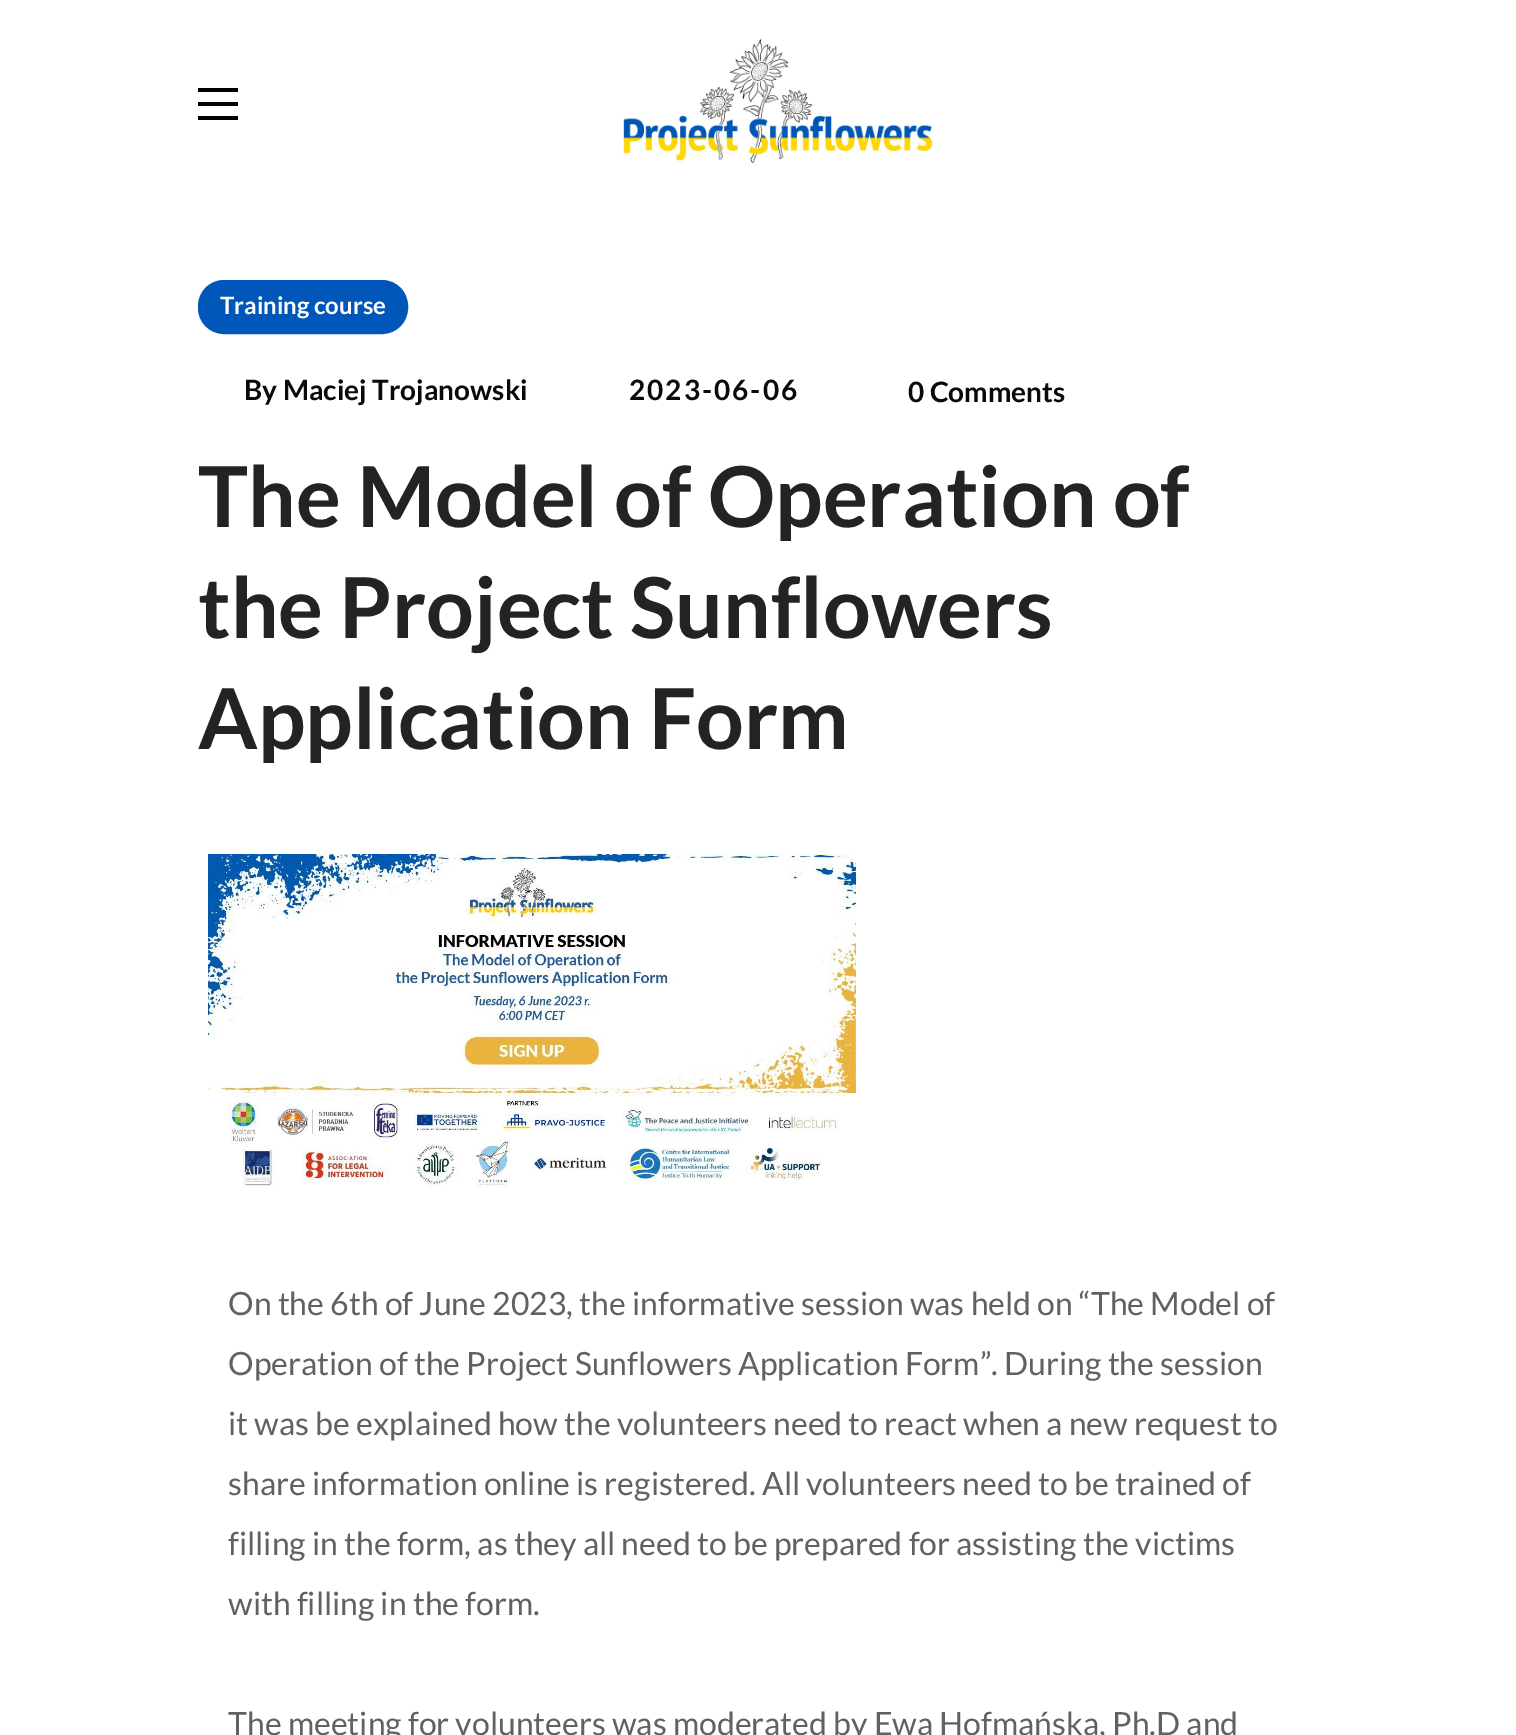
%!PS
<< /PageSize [1516 1735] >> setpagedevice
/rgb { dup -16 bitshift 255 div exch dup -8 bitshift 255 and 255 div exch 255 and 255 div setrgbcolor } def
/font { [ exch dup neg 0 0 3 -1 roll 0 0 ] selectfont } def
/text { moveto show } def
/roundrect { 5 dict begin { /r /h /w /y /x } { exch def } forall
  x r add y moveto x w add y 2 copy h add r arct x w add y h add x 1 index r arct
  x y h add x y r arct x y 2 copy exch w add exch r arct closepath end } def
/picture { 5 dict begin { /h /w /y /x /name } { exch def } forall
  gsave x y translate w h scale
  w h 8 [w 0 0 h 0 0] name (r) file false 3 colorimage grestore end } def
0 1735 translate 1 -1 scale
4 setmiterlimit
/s1 { /Lato-Bold 24 font 16#FFFFFF rgb } def
/s2 { /Lato-Bold 28 font 16#0A0A0A rgb } def
/s3 { /Lato-Bold 84 font 16#232323 rgb } def
/s4 { /Lato-Regular 32 font 16#616161 rgb } def
16#FFFFFF rgb
0 0 1516 1735 rectfill
16#000000 rgb
198 88 40 4 rectfill
198 102 40 4 rectfill
198 116 40 4 rectfill
(pic1.raw) 623 39 310 124 picture
16#0057B9 rgb
200 282 206 50 24 roundrect gsave fill grestore
4 setlinewidth
stroke
s1
(Training course) 220 314 text
s2
(By Maciej Trojanowski) 244 400 text
629 400 moveto 2 0 (2023-06-06) ashow
(0 Comments) 908 402 text
s3
(The Model of Operation of) 198 527 text
(the Project Sunflowers) 198 638 text
(Application Form) 198 749 text
(pic2.raw) 208 854 648 333 picture
s4
(On the 6th of June 2023, the informative session was held on “The Model of) 228 1315 text
(Operation of the Project Sunflowers Application Form”. During the session) 228 1375 text
(it was be explained how the volunteers need to react when a new request to) 228 1435 text
(share information online is registered. All volunteers need to be trained of) 228 1495 text
(filling in the form, as they all need to be prepared for assisting the victims) 228 1555 text
(with filling in the form.) 228 1615 text
(The meeting for volunteers was moderated by Ewa Hofmańska, Ph.D and) 228 1735 text
showpage
